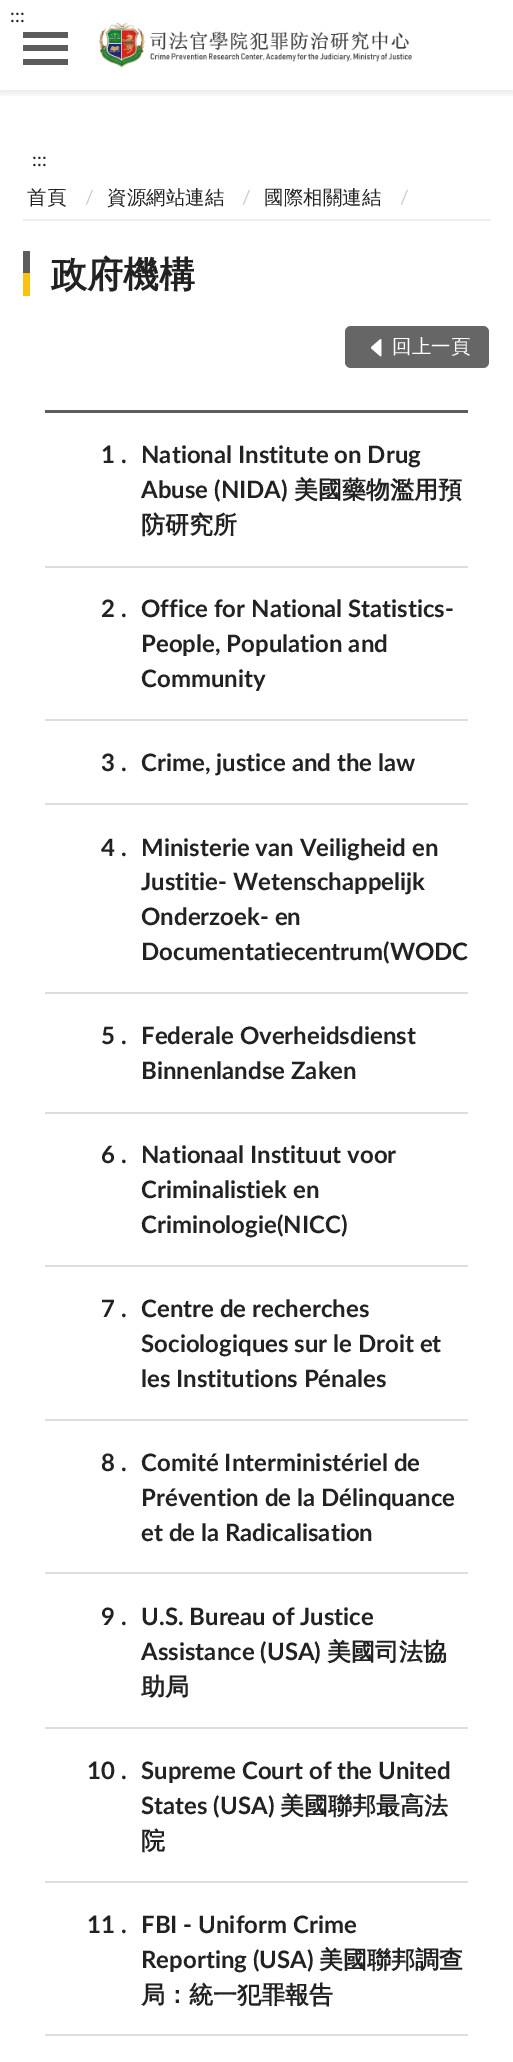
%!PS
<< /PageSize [513 2062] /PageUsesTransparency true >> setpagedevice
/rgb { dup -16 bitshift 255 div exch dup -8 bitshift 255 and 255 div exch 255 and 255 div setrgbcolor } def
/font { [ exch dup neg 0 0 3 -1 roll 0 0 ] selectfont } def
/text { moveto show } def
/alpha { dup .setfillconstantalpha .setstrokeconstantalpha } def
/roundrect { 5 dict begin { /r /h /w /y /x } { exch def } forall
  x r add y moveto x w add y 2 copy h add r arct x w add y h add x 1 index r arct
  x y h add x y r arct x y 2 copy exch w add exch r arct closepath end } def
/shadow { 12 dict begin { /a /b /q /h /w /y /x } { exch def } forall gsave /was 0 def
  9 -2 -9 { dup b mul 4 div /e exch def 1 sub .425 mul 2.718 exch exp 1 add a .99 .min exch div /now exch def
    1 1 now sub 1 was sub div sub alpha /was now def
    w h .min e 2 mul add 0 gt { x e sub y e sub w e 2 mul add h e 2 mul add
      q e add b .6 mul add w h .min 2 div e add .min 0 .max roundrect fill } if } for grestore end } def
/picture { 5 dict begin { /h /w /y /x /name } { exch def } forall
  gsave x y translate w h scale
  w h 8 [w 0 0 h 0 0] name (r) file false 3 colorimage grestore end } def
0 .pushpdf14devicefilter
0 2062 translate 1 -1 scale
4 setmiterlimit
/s1 { /Lato-Regular 19 font 16#222222 rgb } def
/s2 { /WenQuanYiZenHei-Medium 19.5 font 16#222222 rgb } def
/s3 { /Lato-Regular 19.5 font 16#CCCCCC rgb } def
/s4 { /WenQuanYiZenHei-Bold 36 font 16#222222 rgb } def
/s5 { /WenQuanYiZenHei-Medium 19.5 font 16#FFFFFF rgb } def
/s6 { /Lato-Bold 24 font 16#222222 rgb } def
/s7 { /WenQuanYiZenHei-Bold 24 font 16#222222 rgb } def
16#FFFFFF rgb
0 0 513 2062 rectfill
gsave
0 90 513 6 rectclip
16#000000 rgb
0 3 513 90 0 4 0.1 shadow
grestore
s1
(:::) 10 22 text
16#5C5C5C rgb
23 32 45 6 rectfill
23 45 45 6 rectfill
23 59 45 6 rectfill
(pic1.raw) 99 22 313 46 picture
s1
(:::) 32 166 text
16#EEEEEE rgb
23 219 468 2 rectfill
s2
(首頁) 27 204 text
s3
(/) 85 204 text
s2
(資源網站連結) 107 204 text
s3
(/) 242 204 text
s2
(國際相關連結) 264 204 text
s3
(/) 400 204 text
16#5C5C5C rgb
23 251 7 22 rectfill
s4
(政府機構) 51 287 text
16#FCC211 rgb
23 273 7 23 rectfill
16#666666 rgb
345 326 144 42 6 roundrect fill
(pic2.raw) 371 339 11 18 picture
s5
(回上一頁) 392 353 text
16#5C5C5C rgb
45 410 423 3 rectfill
16#DDDDDD rgb
45 566 423 2 rectfill
s6
(1 .) 101 463 text
(National Institute on Drug) 141 463 text
(Abuse \(NIDA\)) 141 498 text
s7
(美國藥物濫用預) 294 498 text
(防研究所) 141 533 text
16#DDDDDD rgb
45 719 423 2 rectfill
s6
(2 .) 101 617 text
(Office for National Statistics-) 141 617 text
(People, Population and) 141 652 text
(Community) 141 687 text
16#DDDDDD rgb
45 803 423 2 rectfill
s6
(3 .) 101 771 text
(Crime, justice and the law) 141 771 text
16#DDDDDD rgb
45 992 423 2 rectfill
s6
(4 .) 101 856 text
(Ministerie van Veiligheid en) 141 856 text
(Justitie- Wetenschappelijk) 141 890 text
(Onderzoek- en) 141 925 text
(Documentatiecentrum\(WODC) 141 960 text
16#DDDDDD rgb
45 1112 423 2 rectfill
s6
(5 .) 101 1044 text
(Federale Overheidsdienst) 141 1044 text
(Binnenlandse Zaken) 141 1079 text
16#DDDDDD rgb
45 1265 423 2 rectfill
s6
(6 .) 101 1163 text
(Nationaal Instituut voor) 141 1163 text
(Criminalistiek en) 141 1198 text
(Criminologie\(NICC\)) 141 1233 text
16#DDDDDD rgb
45 1419 423 2 rectfill
s6
(7 .) 101 1317 text
(Centre de recherches) 141 1317 text
(Sociologiques sur le Droit et) 141 1352 text
(les Institutions Pénales) 141 1387 text
16#DDDDDD rgb
45 1572 423 2 rectfill
s6
(8 .) 101 1471 text
(Comité Interministériel de) 141 1471 text
(Prévention de la Délinquance) 141 1506 text
(et de la Radicalisation) 141 1541 text
16#DDDDDD rgb
45 1727 423 2 rectfill
s6
(9 .) 101 1625 text
(U.S. Bureau of Justice) 141 1625 text
(Assistance \(USA\)) 141 1660 text
s7
(美國司法協) 327 1660 text
(助局) 141 1695 text
16#DDDDDD rgb
45 1881 423 2 rectfill
s6
(10 .) 87 1779 text
(Supreme Court of the United) 141 1779 text
(States \(USA\)) 141 1814 text
s7
(美國聯邦最高法) 280 1814 text
(院) 141 1849 text
16#DDDDDD rgb
45 2034 423 2 rectfill
s6
(11 .) 87 1933 text
(FBI - Uniform Crime) 141 1933 text
(Reporting \(USA\)) 141 1968 text
s7
(美國聯邦調查) 319 1968 text
(局：統一犯罪報告) 141 2003 text
.poppdf14devicefilter showpage
